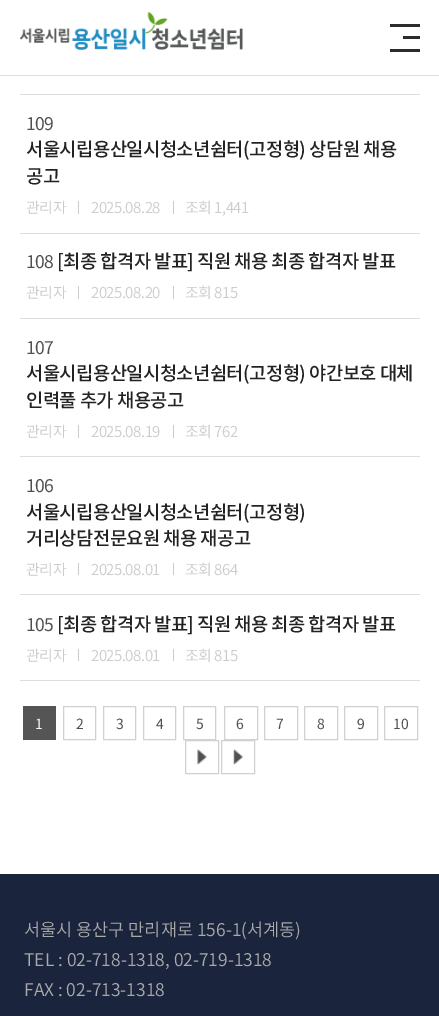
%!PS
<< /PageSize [439 1016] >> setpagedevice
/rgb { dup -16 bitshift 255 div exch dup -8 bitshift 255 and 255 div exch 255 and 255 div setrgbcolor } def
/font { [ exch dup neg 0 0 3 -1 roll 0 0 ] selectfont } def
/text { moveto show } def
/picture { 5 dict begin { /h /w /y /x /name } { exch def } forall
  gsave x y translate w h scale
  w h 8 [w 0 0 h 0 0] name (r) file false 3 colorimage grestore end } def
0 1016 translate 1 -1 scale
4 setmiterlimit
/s1 { /NotoSansKR-Regular 14 font 16#FFFFFF rgb } def
/s2 { /NotoSansKR-Regular 14 font 16#505050 rgb } def
/s3 { /NotoSansKR-Light 17.5 font 16#AAAAAA rgb } def
16#FFFFFF rgb
0 0 439 1016 rectfill
16#DDDDDD rgb
0 75 439 1 rectfill
(pic1.raw) 20 12 223 38 picture
16#2C2C2C rgb
403 36 17 3 rectfill
390 24 30 3 rectfill
390 49 30 3 rectfill
16#DDDDDD rgb
20 94 400 1 rectfill
20 233 400 1 rectfill
/NotoSansKR-Regular 17.5 font
16#505050 rgb
26 130 moveto -0.5 0 (109) ashow
/NotoSansKR-Medium 18.75 font
16#222222 rgb
26 156 moveto -0.55 0 (서울시립용산일시청소년쉼터\(고정형\) 상담원 채용) ashow
26 183 moveto -0.55 0 (공고) ashow
/NotoSansKR-Light 15 font
16#CCCCCC rgb
26 213 moveto -0.5 0 (관리자) ashow
78 201 1 13 rectfill
91 213 moveto -0.5 0 (2025.08.28) ashow
173 201 1 13 rectfill
185 213 moveto -0.5 0 (조회 1,441) ashow
16#DDDDDD rgb
20 318 400 1 rectfill
/NotoSansKR-Regular 17.5 font
16#505050 rgb
26 268 moveto -0.5 0 (108) ashow
/NotoSansKR-Medium 18.75 font
16#222222 rgb
57 268 moveto -0.55 0 ([최종 합격자 발표] 직원 채용 최종 합격자 발표) ashow
/NotoSansKR-Light 15 font
16#CCCCCC rgb
26 298 moveto -0.5 0 (관리자) ashow
78 286 1 13 rectfill
91 298 moveto -0.5 0 (2025.08.20) ashow
173 286 1 13 rectfill
185 298 moveto -0.5 0 (조회 815) ashow
16#DDDDDD rgb
20 456 400 1 rectfill
/NotoSansKR-Regular 17.5 font
16#505050 rgb
26 354 moveto -0.5 0 (107) ashow
/NotoSansKR-Medium 18.75 font
16#222222 rgb
26 380 moveto -0.55 0 (서울시립용산일시청소년쉼터\(고정형\) 야간보호 대체) ashow
26 407 moveto -0.55 0 (인력풀 추가 채용공고) ashow
/NotoSansKR-Light 15 font
16#CCCCCC rgb
26 437 moveto -0.5 0 (관리자) ashow
78 425 1 13 rectfill
91 437 moveto -0.5 0 (2025.08.19) ashow
173 425 1 13 rectfill
185 437 moveto -0.5 0 (조회 762) ashow
16#DDDDDD rgb
20 594 400 1 rectfill
/NotoSansKR-Regular 17.5 font
16#505050 rgb
26 492 moveto -0.5 0 (106) ashow
/NotoSansKR-Medium 18.75 font
16#222222 rgb
26 519 moveto -0.55 0 (서울시립용산일시청소년쉼터\(고정형\)) ashow
26 545 moveto -0.55 0 (거리상담전문요원 채용 재공고) ashow
/NotoSansKR-Light 15 font
16#CCCCCC rgb
26 575 moveto -0.5 0 (관리자) ashow
78 563 1 12 rectfill
91 575 moveto -0.5 0 (2025.08.01) ashow
173 563 1 12 rectfill
185 575 moveto -0.5 0 (조회 864) ashow
16#DDDDDD rgb
20 680 400 1 rectfill
/NotoSansKR-Regular 17.5 font
16#505050 rgb
26 631 moveto -0.5 0 (105) ashow
/NotoSansKR-Medium 18.75 font
16#222222 rgb
57 631 moveto -0.55 0 ([최종 합격자 발표] 직원 채용 최종 합격자 발표) ashow
/NotoSansKR-Light 15 font
16#CCCCCC rgb
26 661 moveto -0.5 0 (관리자) ashow
78 649 1 12 rectfill
91 661 moveto -0.5 0 (2025.08.01) ashow
173 649 1 12 rectfill
185 661 moveto -0.5 0 (조회 815) ashow
16#555555 rgb
23 706 33 34 rectfill
s1
(1) 35 729 text
16#D1D1D1 rgb
63.5 706.5 32 33 rectstroke
s2
(2) 76 729 text
16#D1D1D1 rgb
103.5 706.5 32 33 rectstroke
s2
(3) 116 729 text
16#D1D1D1 rgb
143.5 706.5 32 33 rectstroke
s2
(4) 156 729 text
16#D1D1D1 rgb
183.5 706.5 32 33 rectstroke
s2
(5) 196 729 text
16#D1D1D1 rgb
224.5 706.5 33 33 rectstroke
s2
(6) 236 729 text
16#D1D1D1 rgb
264.5 706.5 33 33 rectstroke
s2
(7) 276 729 text
16#D1D1D1 rgb
304.5 706.5 33 33 rectstroke
s2
(8) 317 729 text
16#D1D1D1 rgb
344.5 706.5 33 33 rectstroke
s2
(9) 357 729 text
16#D1D1D1 rgb
384.5 706.5 33 33 rectstroke
s2
(10) 393 729 text
(pic2.raw) 197 749 10 16 picture
16#D1D1D1 rgb
185.5 740.5 33 33 rectstroke
(pic3.raw) 233 749 10 16 picture
221.5 740.5 33 33 rectstroke
16#1A243D rgb
0 874 439 142 rectfill
s3
(서울시 용산구 만리재로 156-1\(서계동\)) 24 936 text
(TEL : 02-718-1318, 02-719-1318) 24 966 text
(FAX : 02-713-1318) 24 996 text
showpage
